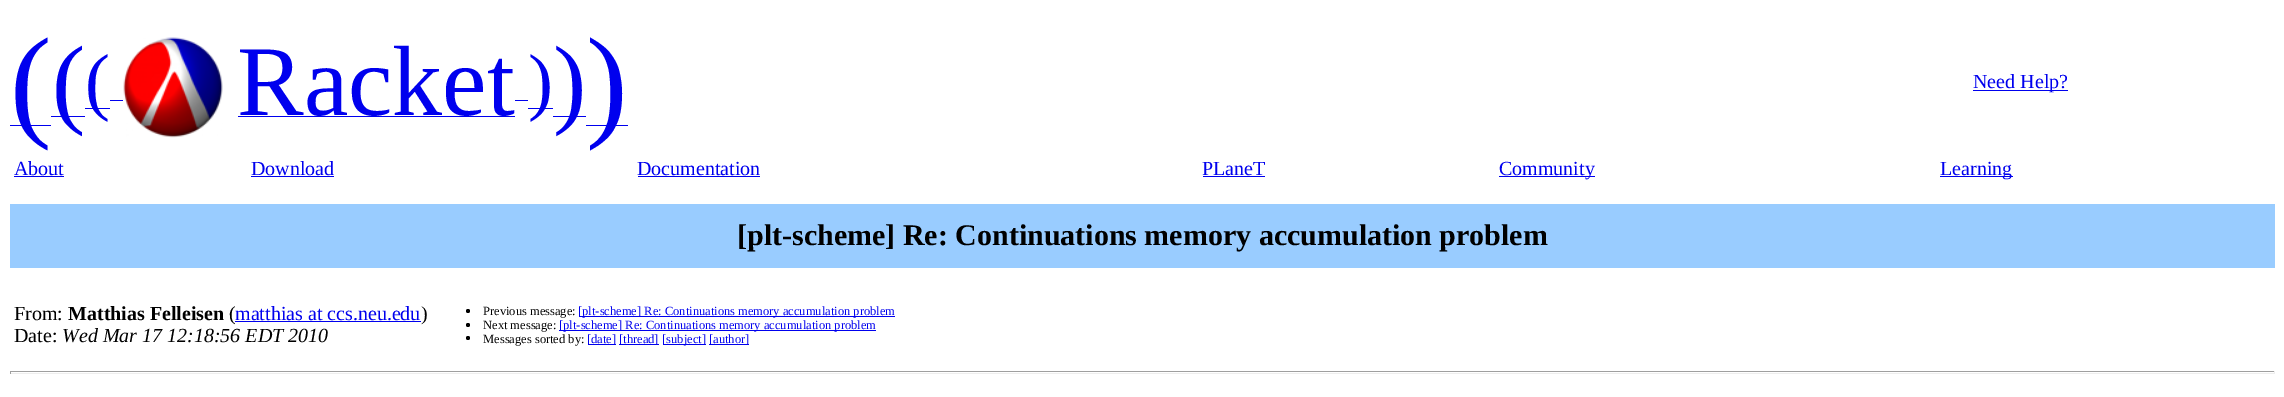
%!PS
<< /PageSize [2284 397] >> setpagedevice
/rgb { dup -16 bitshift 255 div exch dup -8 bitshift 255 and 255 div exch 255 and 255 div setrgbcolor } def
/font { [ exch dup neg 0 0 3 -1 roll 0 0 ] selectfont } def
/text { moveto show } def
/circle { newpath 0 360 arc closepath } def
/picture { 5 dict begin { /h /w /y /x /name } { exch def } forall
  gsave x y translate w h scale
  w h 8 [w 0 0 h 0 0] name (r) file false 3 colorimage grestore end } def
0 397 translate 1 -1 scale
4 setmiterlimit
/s1 { /LiberationSerif-Regular 125 font 16#0000EE rgb } def
/s2 { /LiberationSerif-Regular 100 font 16#0000EE rgb } def
/s3 { /LiberationSerif-Regular 75 font 16#0000EE rgb } def
/s4 { /LiberationSerif-Regular 20 font 16#0000EE rgb } def
/s5 { /LiberationSerif-Bold 30 font 16#000000 rgb } def
/s6 { /LiberationSerif-Regular 20 font 16#000000 rgb } def
/s7 { /LiberationSerif-Bold 20 font 16#000000 rgb } def
/s8 { /LiberationSerif-Italic 20 font 16#000000 rgb } def
/s9 { /LiberationSerif-Regular 12.5 font 16#000000 rgb } def
/s10 { /LiberationSerif-Regular 12.5 font 16#0000EE rgb } def
16#FFFFFF rgb
0 0 2284 397 rectfill
16#0000EE rgb
10 125 41 1 rectfill
s1
(\() 10 124 text
51 116 34 1 rectfill
s2
(\() 52 115 text
85 108 25 1 rectfill
s3
(\() 85 106 text
110 100 13 1 rectfill
(pic1.raw) 123 37 100 101 picture
s2
(Racket) 237 115 text
528 108 25 1 rectfill
s3
(\)) 528 106 text
238 116 277 1 rectfill
515 100 13 1 rectfill
553 116 33 1 rectfill
s2
(\)) 553 115 text
586 125 42 1 rectfill
s1
(\)) 586 124 text
1973 90 95 1 rectfill
s4
(Need Help?) 1973 88 text
(About) 14 175 text
14 176 50 1 rectfill
(Download) 251 175 text
251 176 83 1 rectfill
(Documentation) 637 175 text
638 176 122 1 rectfill
(PLaneT) 1202 175 text
1203 176 62 1 rectfill
1499 176 96 1 rectfill
(Community) 1499 175 text
1940 176 73 1 rectfill
(Learning) 1940 175 text
16#99CCFF rgb
10 204 2265 64 rectfill
s5
([plt-scheme] Re: Continuations memory accumulation problem) 737 245 text
s6
(From:) 14 320 text
s7
(Matthias Felleisen) 68 320 text
s6
(\() 229 320 text
s4
(matthias at ccs.neu.edu) 235 320 text
235 321 186 1 rectfill
s6
(\)) 421 320 text
(Date:) 14 342 text
s8
(Wed Mar 17 12:18:56 EDT 2010) 62 342 text
468 311 2 circle fill
s9
(Previous message:) 483 315 text
16#0000EE rgb
579 316 316 1 rectfill
([plt-scheme] Re: Continuations memory accumulation problem) 578 315 text
16#000000 rgb
468 325 2 circle fill
(Next message:) 483 329 text
16#0000EE rgb
559 330 317 1 rectfill
([plt-scheme] Re: Continuations memory accumulation problem) 559 329 text
16#000000 rgb
468 338 2 circle fill
(Messages sorted by:) 483 343 text
16#0000EE rgb
588 344 28 1 rectfill
([date]) 587 343 text
619 344 40 1 rectfill
([thread]) 619 343 text
663 344 43 1 rectfill
([subject]) 662 343 text
709 344 40 1 rectfill
([author]) 709 343 text
16#9F9F9F rgb
10 371 2265 1 rectfill
16#EEEEEE rgb
2274 371 1 3 rectfill
10 373 2265 1 rectfill
16#9F9F9F rgb
10 371 1 3 rectfill
showpage
